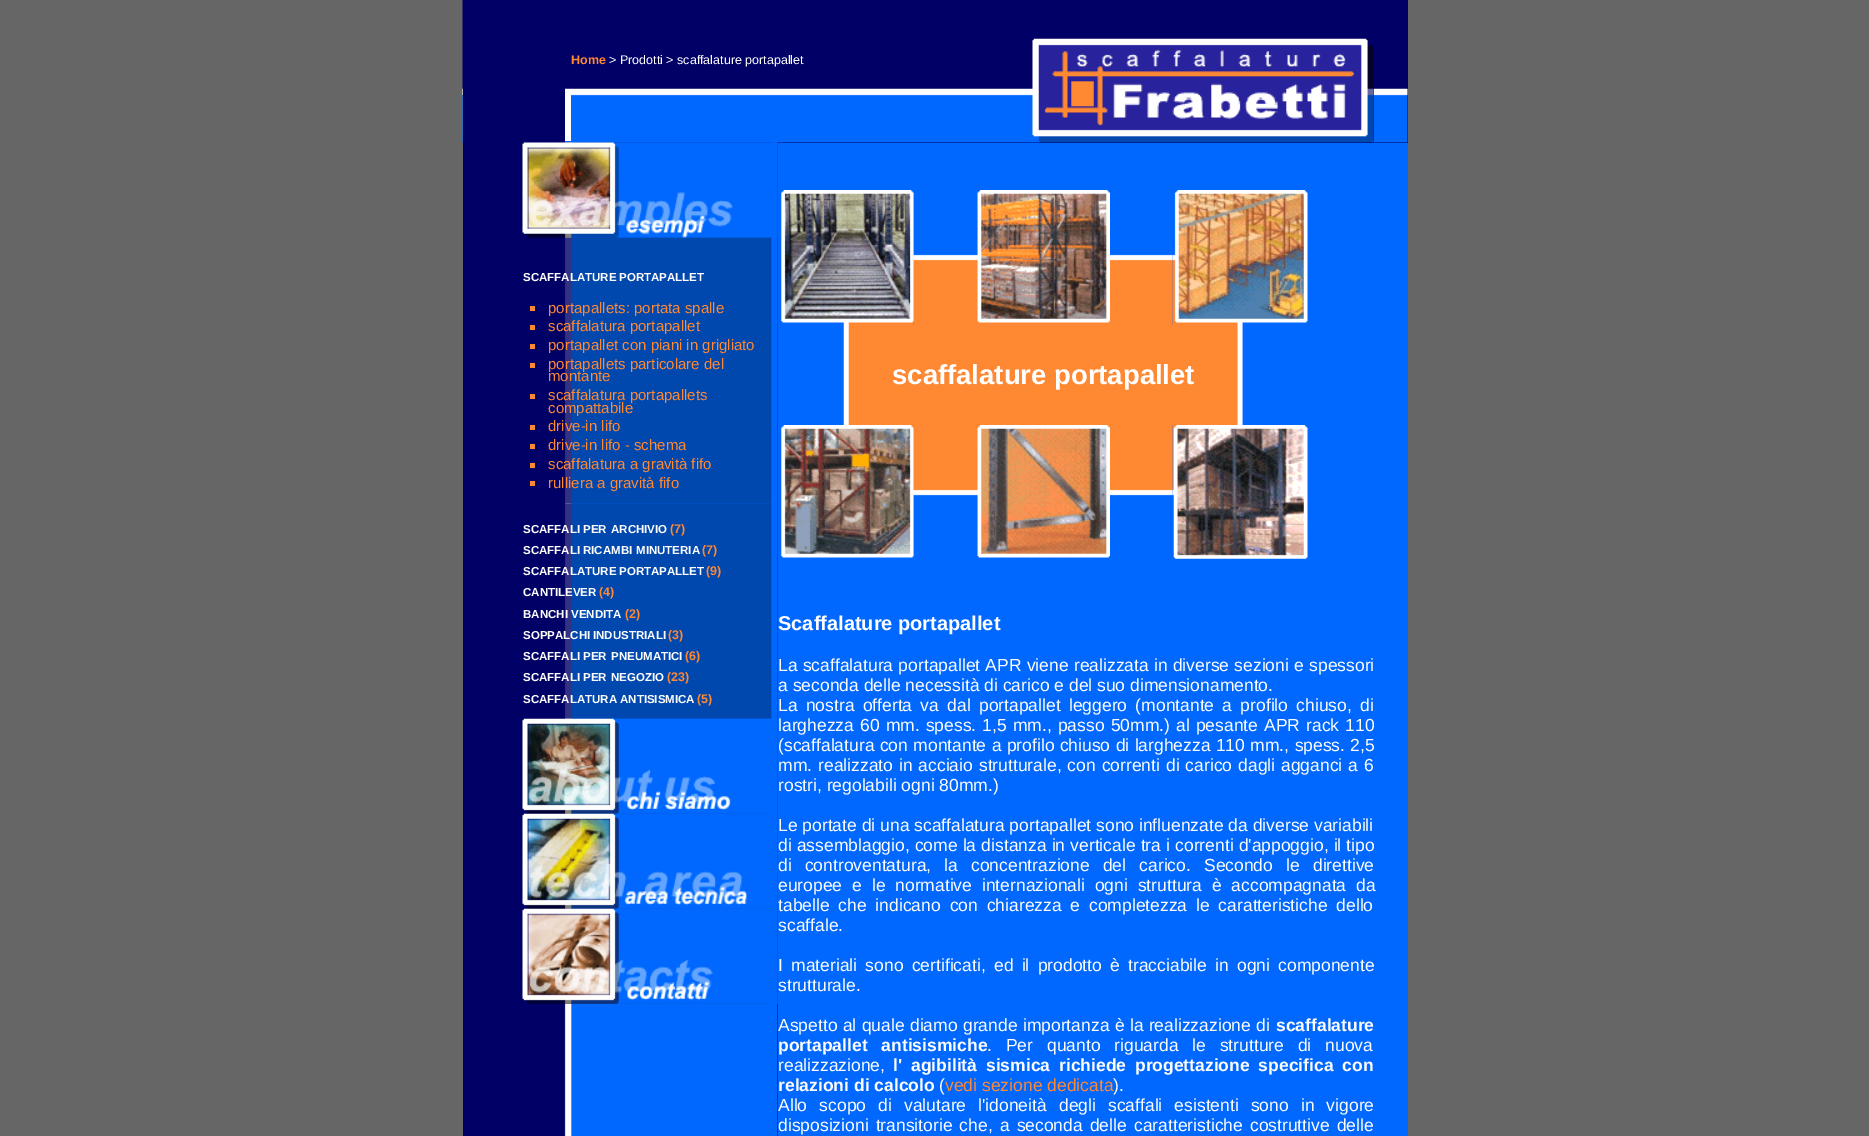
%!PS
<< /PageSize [1869 1136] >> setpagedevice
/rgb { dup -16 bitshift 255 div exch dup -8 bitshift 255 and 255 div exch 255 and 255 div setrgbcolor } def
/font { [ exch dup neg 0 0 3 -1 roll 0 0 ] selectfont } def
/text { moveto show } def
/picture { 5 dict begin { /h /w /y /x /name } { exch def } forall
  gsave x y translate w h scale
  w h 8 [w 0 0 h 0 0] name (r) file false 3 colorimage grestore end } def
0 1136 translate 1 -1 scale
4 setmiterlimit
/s1 { /LiberationSans-Bold 12.5 font 16#FF8833 rgb } def
/s2 { /LiberationSans-Regular 12.5 font 16#FFFFFF rgb } def
/s3 { /LiberationSans-Bold 11.5 font 16#FFFFFF rgb } def
/s4 { /LiberationSans-Regular 15 font 16#FF8833 rgb } def
/s5 { /LiberationSans-Bold 27.5 font 16#FFFFFF rgb } def
/s6 { /LiberationSans-Bold 20 font 16#FFFFFF rgb } def
/s7 { /LiberationSans-Regular 17.5 font 16#FFFFFF rgb } def
/s8 { /LiberationSans-Bold 17.5 font 16#FFFFFF rgb } def
/s9 { /LiberationSans-Regular 17.5 font 16#FF8833 rgb } def
16#666666 rgb
0 0 1869 1136 rectfill
16#000066 rgb
463 0 945 1136 rectfill
(pic1.raw) 462 0 946 143 picture
s1
(Home) 571 64 text
s2
(> Prodotti > scaffalature portapallet) 609 64 text
565 89 6 52 rectfill
16#000066 rgb
1033 88 341 55 rectfill
(pic2.raw) 1032 38 342 105 picture
463 88 102 55 rectfill
(pic3.raw) 564 142 214 994 picture
(pic4.raw) 564 142 214 96 picture
(pic6.raw) 564 237 214 267 picture
(pic5.raw) 522 142 256 96 picture
s3
(SCAFFALATURE) 523 281 text
(PORTAPALLET) 619 281 text
16#FF8833 rgb
530 306 5 5 rectfill
s4
(portapallets: portata spalle) 548 313 text
530 325 5 5 rectfill
(scaffalatura portapallet) 548 331 text
530 344 5 5 rectfill
(portapallet con piani in grigliato) 548 350 text
530 363 5 5 rectfill
(portapallets particolare del) 548 369 text
(montante) 548 381 text
530 394 5 5 rectfill
(scaffalatura portapallets) 548 400 text
(compattabile) 548 413 text
530 425 5 5 rectfill
(drive-in lifo) 548 431 text
530 444 5 5 rectfill
(drive-in lifo - schema) 548 450 text
530 463 5 5 rectfill
(scaffalatura a gravità fifo) 548 469 text
530 481 5 5 rectfill
(rulliera a gravità fifo) 548 488 text
(pic7.raw) 564 503 214 2 picture
(pic8.raw) 564 505 214 214 picture
s3
(SCAFFALI) 523 533 text
(PER) 583 533 text
(ARCHIVIO) 611 533 text
s1
(\(7\)) 670 533 text
s3
(SCAFFALI) 523 554 text
(RICAMBI) 583 554 text
(MINUTERIA) 636 554 text
s1
(\(7\)) 702 554 text
s3
(SCAFFALATURE) 523 575 text
(PORTAPALLET) 619 575 text
s1
(\(9\)) 706 575 text
s3
(CANTILEVER) 523 596 text
s1
(\(4\)) 599 596 text
s3
(BANCHI) 523 618 text
(VENDITA) 571 618 text
s1
(\(2\)) 625 618 text
s3
(SOPPALCHI) 523 639 text
(INDUSTRIALI) 593 639 text
s1
(\(3\)) 668 639 text
s3
(SCAFFALI) 523 660 text
(PER) 583 660 text
(PNEUMATICI) 611 660 text
s1
(\(6\)) 685 660 text
s3
(SCAFFALI) 523 681 text
(PER) 583 681 text
(NEGOZIO) 611 681 text
s1
(\(23\)) 667 681 text
s3
(SCAFFALATURA) 523 703 text
(ANTISISMICA) 620 703 text
s1
(\(5\)) 697 703 text
(pic9.raw) 564 718 214 96 picture
(pic9.raw) 564 813 214 96 picture
(pic10.raw) 522 718 256 96 picture
(pic9.raw) 564 908 214 96 picture
(pic11.raw) 522 813 256 96 picture
(pic12.raw) 522 908 256 96 picture
16#0068FF rgb
778 143 630 993 rectfill
(pic13.raw) 843 254 71 71 picture
(pic14.raw) 781 190 133 133 picture
(pic15.raw) 913 192 62 133 picture
(pic16.raw) 975 254 135 71 picture
(pic17.raw) 977 190 133 133 picture
(pic19.raw) 1172 254 71 71 picture
(pic18.raw) 1110 254 63 71 picture
(pic20.raw) 1174 190 134 133 picture
(pic21.raw) 843 325 400 100 picture
s5
(scaffalature portapallet) 892 384 text
(pic22.raw) 911 425 3 71 picture
(pic23.raw) 781 425 133 133 picture
(pic24.raw) 913 425 62 132 picture
(pic25.raw) 975 425 135 71 picture
(pic26.raw) 977 425 133 133 picture
(pic28.raw) 1172 425 5 71 picture
(pic27.raw) 1110 425 63 71 picture
(pic29.raw) 1173 425 135 134 picture
s6
(Scaffalature portapallet) 778 630 text
/LiberationSans-Regular 17.5 font
778 671 moveto 0.4 0 32 (La scaffalatura portapallet APR viene realizzata in diverse sezioni e spessori) widthshow
(a seconda delle necessità di carico e del suo dimensionamento.) 778 691 text
778 711 moveto 3.4 0 32 (La nostra offerta va dal portapallet leggero \(montante a profilo chiuso, di) widthshow
778 731 moveto 1.25 0 32 (larghezza 60 mm. spess. 1,5 mm., passo 50mm.\) al pesante APR rack 110) widthshow
778 751 moveto 0.5 0 32 (\(scaffalatura con montante a profilo chiuso di larghezza 110 mm., spess. 2,5) widthshow
778 771 moveto 1.1 0 32 (mm. realizzato in acciaio strutturale, con correnti di carico dagli agganci a 6) widthshow
(rostri, regolabili ogni 80mm.\)) 778 791 text
(Le portate di una scaffalatura portapallet sono influenzate da diverse variabili) 778 831 text
778 851 moveto 0.25 0 32 (di assemblaggio, come la distanza in verticale tra i correnti d'appoggio, il tipo) widthshow
778 871 moveto 8.25 0 32 (di controventatura, la concentrazione del carico. Secondo le direttive) widthshow
778 891 moveto 5 0 32 (europee e le normative internazionali ogni struttura è accompagnata da) widthshow
778 911 moveto 4 0 32 (tabelle che indicano con chiarezza e completezza le caratteristiche dello) widthshow
(scaffale.) 778 931 text
778 971 moveto 3.4 0 32 (I materiali sono certificati, ed il prodotto è tracciabile in ogni componente) widthshow
(strutturale.) 778 991 text
778 1031 moveto 0.5 0 32 (Aspetto al quale diamo grande importanza è la realizzazione di) widthshow
s8
(scaffalature) 1276 1031 text
778 1051 moveto 9 0 32 (portapallet antisismiche) widthshow
/LiberationSans-Regular 17.5 font
987 1051 moveto 9 0 32 (. Per quanto riguarda le strutture di nuova) widthshow
(realizzazione,) 778 1071 text
/LiberationSans-Bold 17.5 font
893 1071 moveto 4 0 32 (l' agibilità sismica richiede progettazione specifica con) widthshow
(relazioni di calcolo) 778 1091 text
s7
(\() 939 1091 text
s9
(vedi sezione dedicata) 945 1091 text
s7
(\).) 1113 1091 text
778 1111 moveto 7.25 0 32 (Allo scopo di valutare l'idoneità degli scaffali esistenti sono in vigore) widthshow
778 1131 moveto 2.25 0 32 (disposizioni transitorie che, a seconda delle caratteristiche costruttive delle) widthshow
showpage
